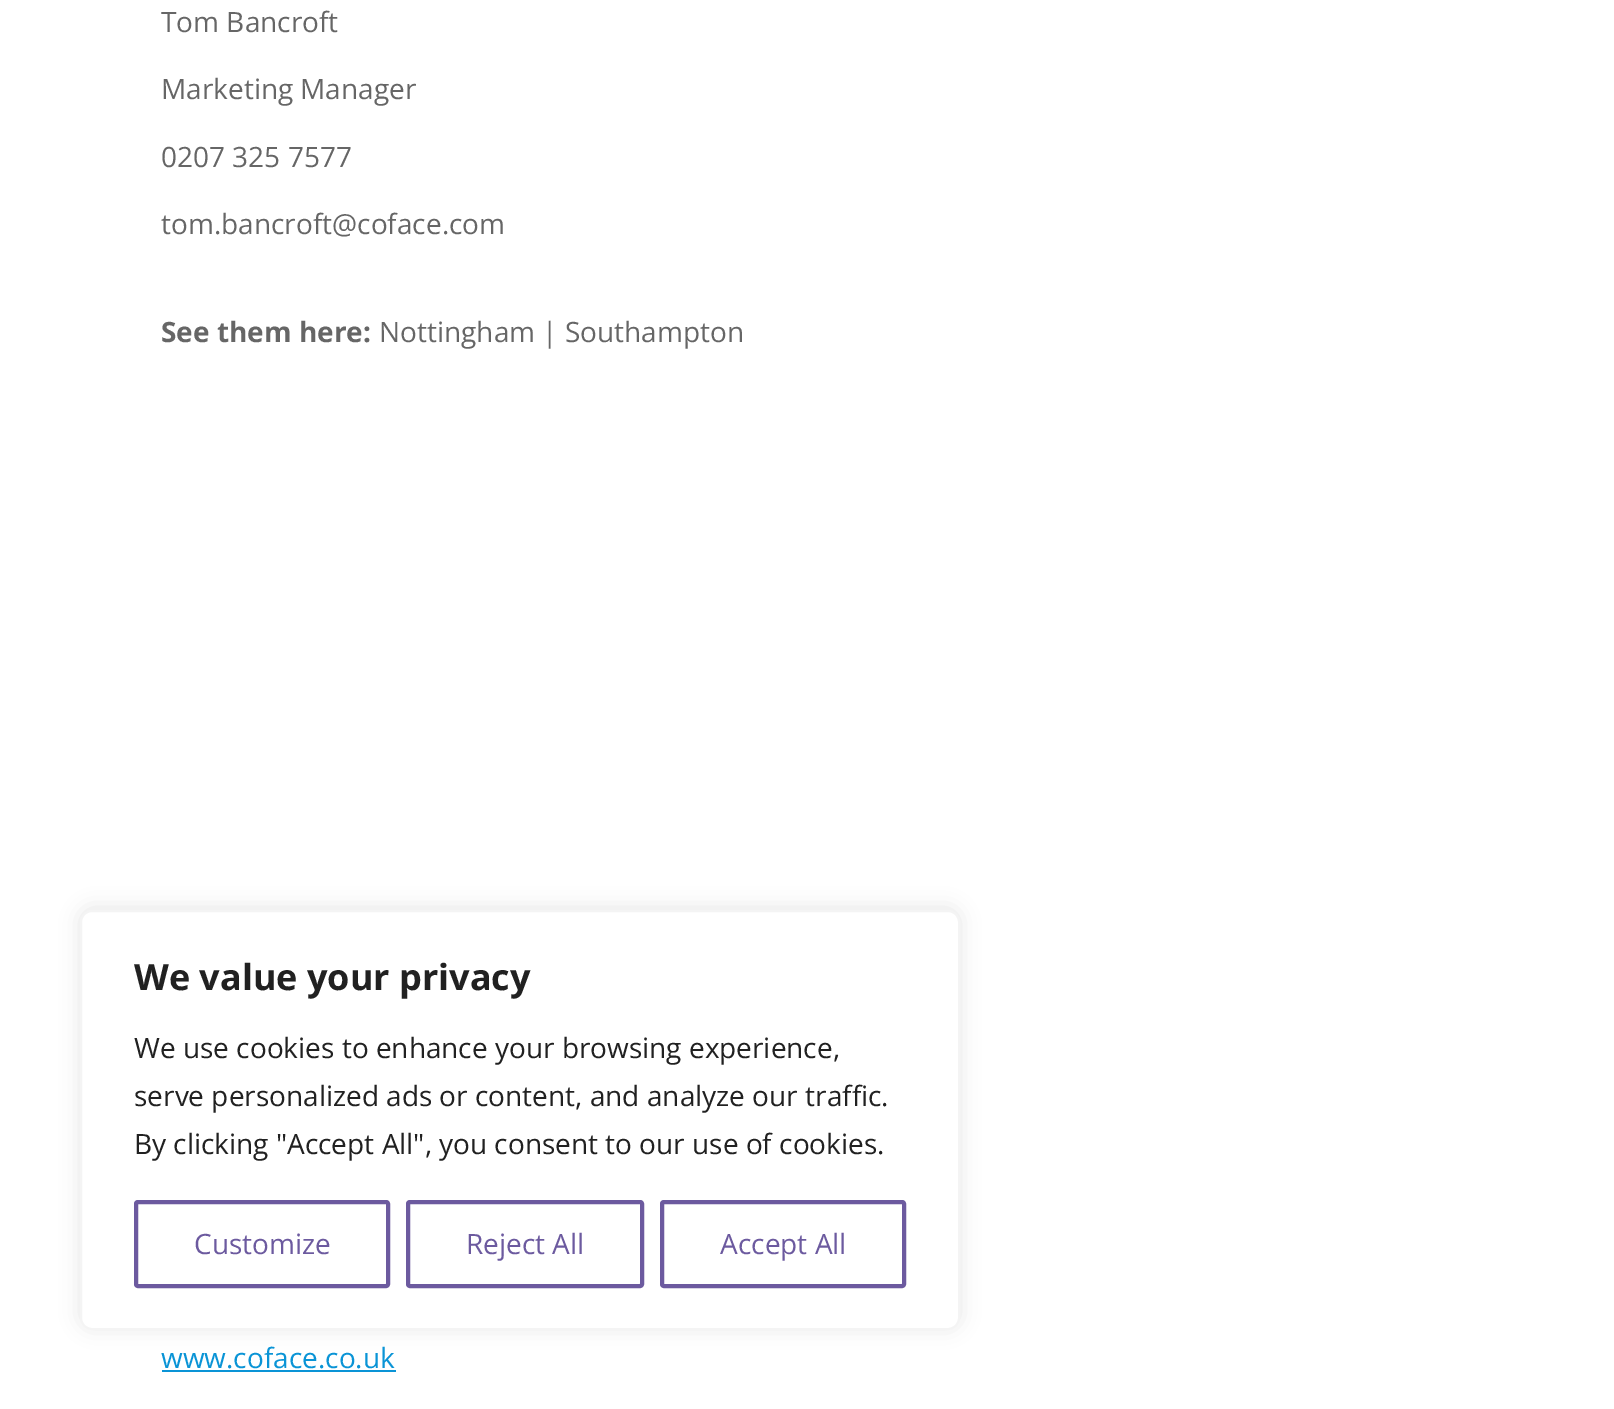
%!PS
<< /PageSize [1614 1409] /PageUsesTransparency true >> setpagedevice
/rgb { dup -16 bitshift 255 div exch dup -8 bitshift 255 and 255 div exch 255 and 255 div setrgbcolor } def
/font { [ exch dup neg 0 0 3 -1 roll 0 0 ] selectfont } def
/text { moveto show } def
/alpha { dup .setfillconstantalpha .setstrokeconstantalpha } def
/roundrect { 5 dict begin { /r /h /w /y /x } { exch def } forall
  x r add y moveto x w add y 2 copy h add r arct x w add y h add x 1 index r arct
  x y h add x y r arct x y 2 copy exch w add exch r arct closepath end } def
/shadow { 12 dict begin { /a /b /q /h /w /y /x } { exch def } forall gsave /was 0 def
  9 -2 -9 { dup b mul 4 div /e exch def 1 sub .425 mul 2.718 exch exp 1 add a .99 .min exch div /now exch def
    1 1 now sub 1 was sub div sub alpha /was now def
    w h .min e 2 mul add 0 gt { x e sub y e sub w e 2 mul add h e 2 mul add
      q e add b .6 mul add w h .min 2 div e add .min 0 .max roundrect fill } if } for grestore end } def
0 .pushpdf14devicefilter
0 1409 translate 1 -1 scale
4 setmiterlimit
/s1 { /OpenSans-Regular 28 font 16#666666 rgb } def
/s2 { /OpenSans-Bold 28 font 16#666666 rgb } def
/s3 { /OpenSans-Regular 28 font 16#0A94D6 rgb } def
/s4 { /OpenSans-Bold 36 font 16#212121 rgb } def
/s5 { /OpenSans-Regular 28 font 16#212121 rgb } def
/s6 { /OpenSans-Regular 28 font 16#6C5A9F rgb } def
16#FFFFFF rgb
0 0 1614 1409 rectfill
s1
(Tom Bancroft) 161 32 text
(Marketing Manager) 161 99 text
(0207 325 7577) 161 167 text
(tom.bancroft@coface.com) 161 234 text
s2
(See them here:) 161 342 text
s1
(Nottingham | Southampton) 379 342 text
s3
(www.coface.co.uk) 161 1368 text
162 1370 234 2 rectfill
16#ACABAB rgb
80 908 880 420 12 10 0.3 shadow
16#FFFFFF rgb
81 911 878 418 11 roundrect gsave fill grestore
16#F4F4F4 rgb
2 setlinewidth
stroke
s4
(We value your privacy) 134 990 text
s5
(We use cookies to enhance your browsing experience,) 134 1058 text
(serve personalized ads or content, and analyze our traffic.) 134 1106 text
(By clicking "Accept All", you consent to our use of cookies.) 134 1154 text
16#6C5A9F rgb
4 setlinewidth
136 1202 252 84 2 roundrect stroke
(Customize) 194 1254 text
408 1202 234 84 2 roundrect stroke
(Reject All) 466 1254 text
662 1202 242 84 2 roundrect stroke
(Accept All) 720 1254 text
.poppdf14devicefilter showpage
